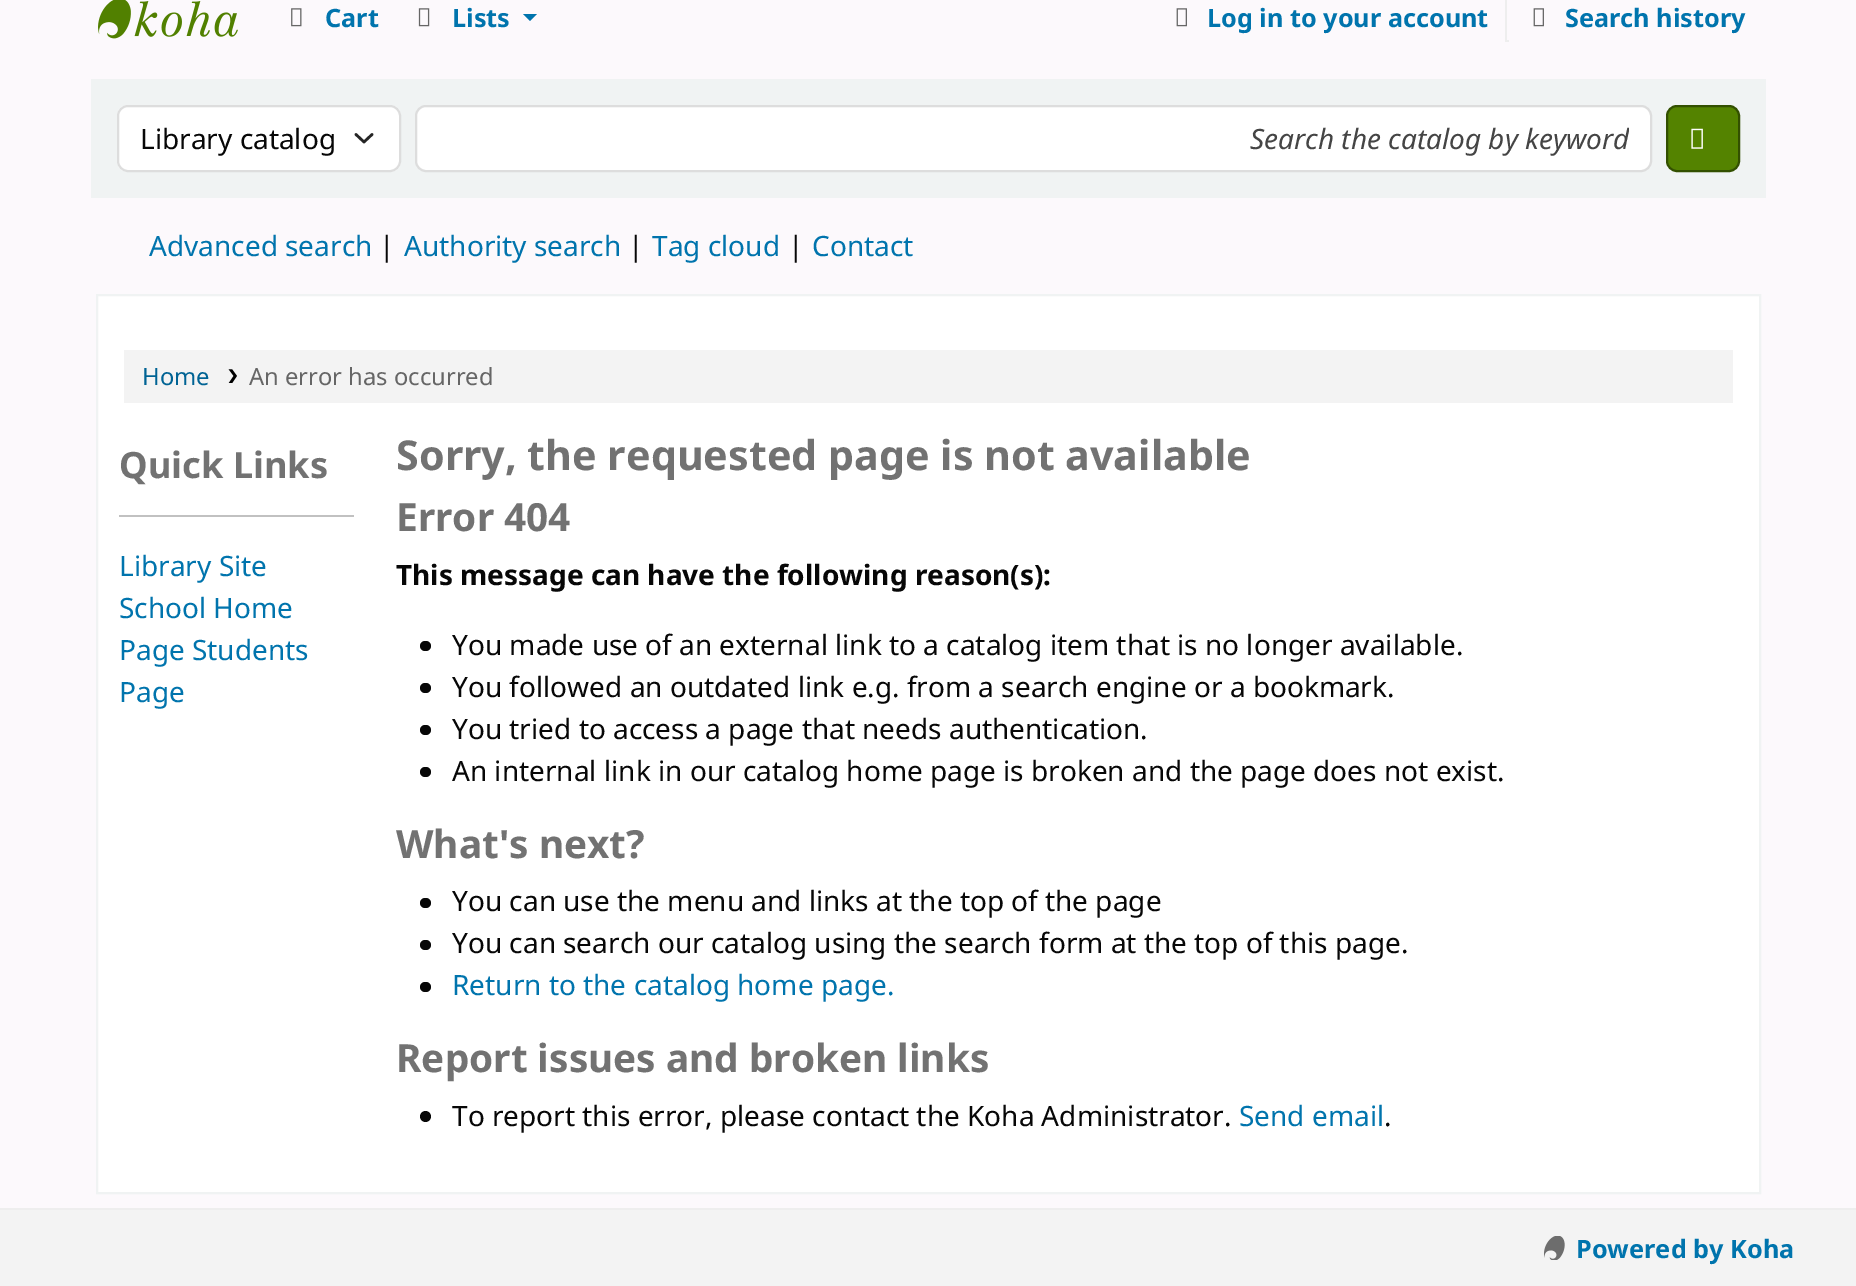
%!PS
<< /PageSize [1856 1286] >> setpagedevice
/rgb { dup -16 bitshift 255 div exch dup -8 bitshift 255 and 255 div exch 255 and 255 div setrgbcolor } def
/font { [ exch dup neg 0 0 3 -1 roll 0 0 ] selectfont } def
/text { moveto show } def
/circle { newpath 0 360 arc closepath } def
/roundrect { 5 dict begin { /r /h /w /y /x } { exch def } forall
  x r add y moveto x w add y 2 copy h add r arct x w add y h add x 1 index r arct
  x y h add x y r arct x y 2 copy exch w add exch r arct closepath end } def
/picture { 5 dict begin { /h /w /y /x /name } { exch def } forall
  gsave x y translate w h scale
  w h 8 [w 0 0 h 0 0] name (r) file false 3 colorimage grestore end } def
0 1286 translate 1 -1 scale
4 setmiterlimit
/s1 { /NotoSans-Bold 25.25 font 16#0074AD rgb } def
/s2 { /NotoSans-Regular 28 font 16#070707 rgb } def
/s3 { /NotoSans-Italic 28 font 16#454545 rgb } def
/s4 { /NotoSans-Regular 28 font 16#0074AD rgb } def
/s5 { /NotoSans-Regular 23.75 font 16#006394 rgb } def
/s6 { /NotoSans-Regular 23.75 font 16#666666 rgb } def
/s7 { /NotoSans-Bold 36.25 font 16#727272 rgb } def
/s8 { /NotoSans-Bold 41.25 font 16#727272 rgb } def
/s9 { /NotoSans-Bold 38.75 font 16#727272 rgb } def
/s10 { /NotoSans-Bold 28 font 16#070707 rgb } def
16#FCF9FC rgb
0 0 1856 1286 rectfill
(pic1.raw) 98 0 140 39 picture
(pic2.raw) 291 8 11 19 picture
s1
(Cart) 325 27 text
(pic3.raw) 418 8 12 19 picture
(Lists) 452 27 text
523 14 moveto 537 14 lineto 530 21 lineto closepath fill
(pic4.raw) 1176 8 11 19 picture
(Log in to your account) 1207 27 text
16#EEEEEE rgb
1505 40 4 2 rectfill
1505 0 2 42 rectfill
(pic4.raw) 1533 8 11 19 picture
s1
(Search history) 1565 27 text
16#F0F3F3 rgb
91 79 1675 119 rectfill
16#FFFFFF rgb
117 105 284 67 11 roundrect fill
16#252525 rgb
2.6 setlinewidth
1 setlinecap
1 setlinejoin
356 134.5 moveto 364 142 lineto 372 134.5 lineto stroke
16#DDDDDD rgb
2 setlinewidth
0 setlinecap
0 setlinejoin
118 106 282 65 10 roundrect stroke
s2
(Library catalog) 140 149 text
16#FFFFFF rgb
416 106 1235 65 10 roundrect gsave fill grestore
16#DDDDDD rgb
stroke
gsave
438 119 1191 39 rectclip
s3
(Search the catalog by keyword) 1250 149 text
grestore
16#548300 rgb
1667 106 72 65 10 roundrect gsave fill grestore
16#335000 rgb
stroke
(pic5.raw) 1691 128 12 21 picture
s4
(Advanced search) 149 256 text
s2
(|) 379 256 text
s4
(Authority search) 404 256 text
s2
(|) 628 256 text
s4
(Tag cloud) 652 256 text
s2
(|) 788 256 text
s4
(Contact) 812 256 text
16#FFFFFF rgb
97 295 moveto 1760 295 lineto 1760 1193 lineto 97 1193 lineto closepath gsave fill grestore
16#F0F3F3 rgb
stroke
16#F3F3F3 rgb
124 350 1609 53 rectfill
s5
(Home) 142 385 text
(pic6.raw) 228 369 9 14 picture
s6
(An error has occurred) 249 385 text
s7
(Quick Links) 119 478 text
16#C1C1C1 rgb
119 515 235 2 rectfill
s4
(Library Site) 119 576 text
(School Home) 119 618 text
(Page Students) 119 660 text
(Page) 119 702 text
s8
(Sorry, the requested page is not available) 396 470 text
s9
(Error 404) 396 531 text
s10
(This message can have the following reason\(s\):) 396 585 text
420 641 11 10 5 roundrect fill
s2
(You made use of an external link to a catalog item that is no longer available.) 452 655 text
420 683 11 10 5 roundrect fill
(You followed an outdated link e.g. from a search engine or a bookmark.) 452 697 text
420 725 11 10 5 roundrect fill
(You tried to access a page that needs authentication.) 452 739 text
420 767 11 10 5 roundrect fill
(An internal link in our catalog home page is broken and the page does not exist.) 452 781 text
s9
(What's next?) 396 858 text
16#070707 rgb
420 898 11 10 5 roundrect fill
s2
(You can use the menu and links at the top of the page) 452 911 text
420 940 11 10 5 roundrect fill
(You can search our catalog using the search form at the top of this page.) 452 953 text
420 982 11 10 5 roundrect fill
s4
(Return to the catalog home page.) 452 995 text
s9
(Report issues and broken links) 396 1072 text
16#070707 rgb
425.5 1116.5 5.5 circle fill
s2
(To report this error, please contact the Koha Administrator.) 452 1126 text
s4
(Send email) 1239 1126 text
s2
(.) 1384 1126 text
16#F3F3F3 rgb
0 1210 1856 76 rectfill
16#EEEEEE rgb
0 1208 1856 2 rectfill
(pic7.raw) 1544 1236 21 24 picture
s1
(Powered by Koha) 1576 1258 text
showpage
